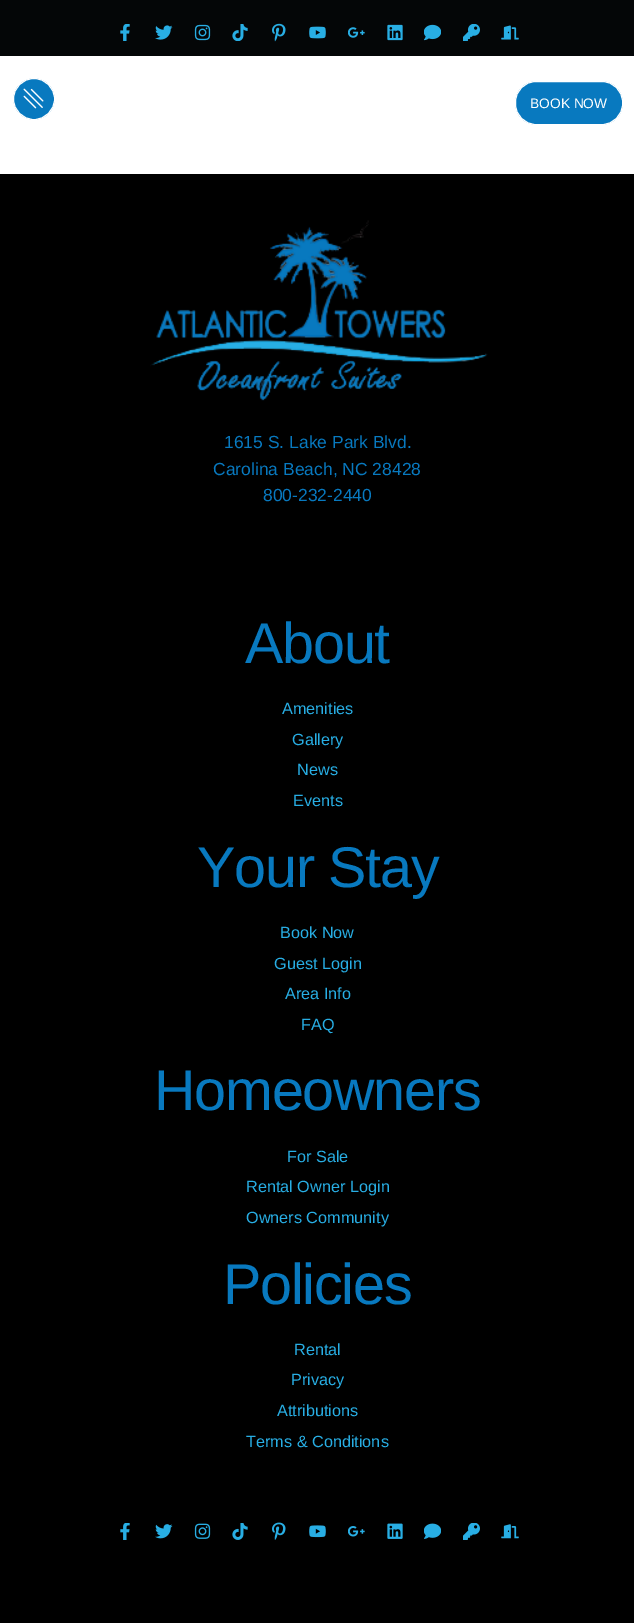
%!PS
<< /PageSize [634 1623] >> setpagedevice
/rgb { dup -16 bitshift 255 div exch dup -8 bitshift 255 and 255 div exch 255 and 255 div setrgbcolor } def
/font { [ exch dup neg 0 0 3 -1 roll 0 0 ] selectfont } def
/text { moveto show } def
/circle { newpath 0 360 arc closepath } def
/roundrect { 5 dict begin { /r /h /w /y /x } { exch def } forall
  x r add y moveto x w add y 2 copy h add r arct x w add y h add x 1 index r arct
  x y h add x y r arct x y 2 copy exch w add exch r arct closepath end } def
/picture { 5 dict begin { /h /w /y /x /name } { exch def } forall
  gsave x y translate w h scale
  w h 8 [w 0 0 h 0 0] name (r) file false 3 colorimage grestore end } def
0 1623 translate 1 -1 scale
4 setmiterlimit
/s1 { /LiberationSans-Regular 13.75 font 16#FFFFFF rgb } def
/s2 { /LiberationSans-Regular 17.5 font 16#0879BF rgb } def
/s3 { /LiberationSans-Regular 16.25 font 16#28AEE4 rgb } def
16#FFFFFF rgb
0 0 634 1623 rectfill
16#040607 rgb
0 0 634 56 rectfill
(pic1.raw) 120 24 10 17 picture
(pic2.raw) 155 25 18 15 picture
(pic3.raw) 194 24 17 17 picture
(pic4.raw) 232 24 16 17 picture
(pic5.raw) 272 23 14 19 picture
(pic6.raw) 309 26 17 13 picture
(pic7.raw) 348 27 17 11 picture
(pic8.raw) 387 24 16 17 picture
(pic9.raw) 424 24 17 17 picture
(pic10.raw) 463 24 17 17 picture
(pic11.raw) 501 25 18 15 picture
16#0879BF rgb
34 99 20.5 circle gsave fill grestore
16#FFFFFF rgb
stroke
(pic12.raw) 23 88 21 21 picture
16#0879BF rgb
515.5 81.5 107 43 20.5 roundrect gsave fill grestore
16#FFFFFF rgb
stroke
s1
(BOOK NOW) 530 108 text
16#000000 rgb
0 174 634 1449 rectfill
(pic13.raw) 150 220 338 181 picture
s2
(1615 S. Lake Park Blvd.) 224 448 text
(Carolina Beach, NC 28428) 213 475 text
(800-232-2440) 263 501 text
/LiberationSans-Regular 57.5 font
245 663 moveto -1.25 0 (About) ashow
s3
(Amenities) 282 714 text
(Gallery) 292 745 text
(News) 297 775 text
(Events) 293 806 text
/LiberationSans-Regular 57.5 font
16#0879BF rgb
197 887 moveto -1.25 0 (Your Stay) ashow
s3
(Book Now) 280 938 text
(Guest Login) 274 969 text
(Area Info) 285 999 text
(FAQ) 301 1030 text
/LiberationSans-Regular 57.5 font
16#0879BF rgb
154 1110 moveto -1.25 0 (Homeowners) ashow
s3
(For Sale) 287 1162 text
(Rental Owner Login) 246 1192 text
(Owners Community) 246 1223 text
/LiberationSans-Regular 57.5 font
16#0879BF rgb
223 1304 moveto -1.25 0 (Policies) ashow
s3
(Rental) 294 1355 text
(Privacy) 291 1385 text
(Attributions) 277 1416 text
(Terms & Conditions) 246 1447 text
(pic14.raw) 120 1523 10 17 picture
(pic15.raw) 155 1524 18 15 picture
(pic16.raw) 194 1523 17 16 picture
(pic17.raw) 232 1523 16 17 picture
(pic18.raw) 272 1522 14 18 picture
(pic19.raw) 309 1525 17 13 picture
(pic20.raw) 348 1526 17 11 picture
(pic21.raw) 387 1523 16 16 picture
(pic22.raw) 424 1523 17 16 picture
(pic23.raw) 463 1523 17 17 picture
(pic24.raw) 501 1524 18 15 picture
showpage
